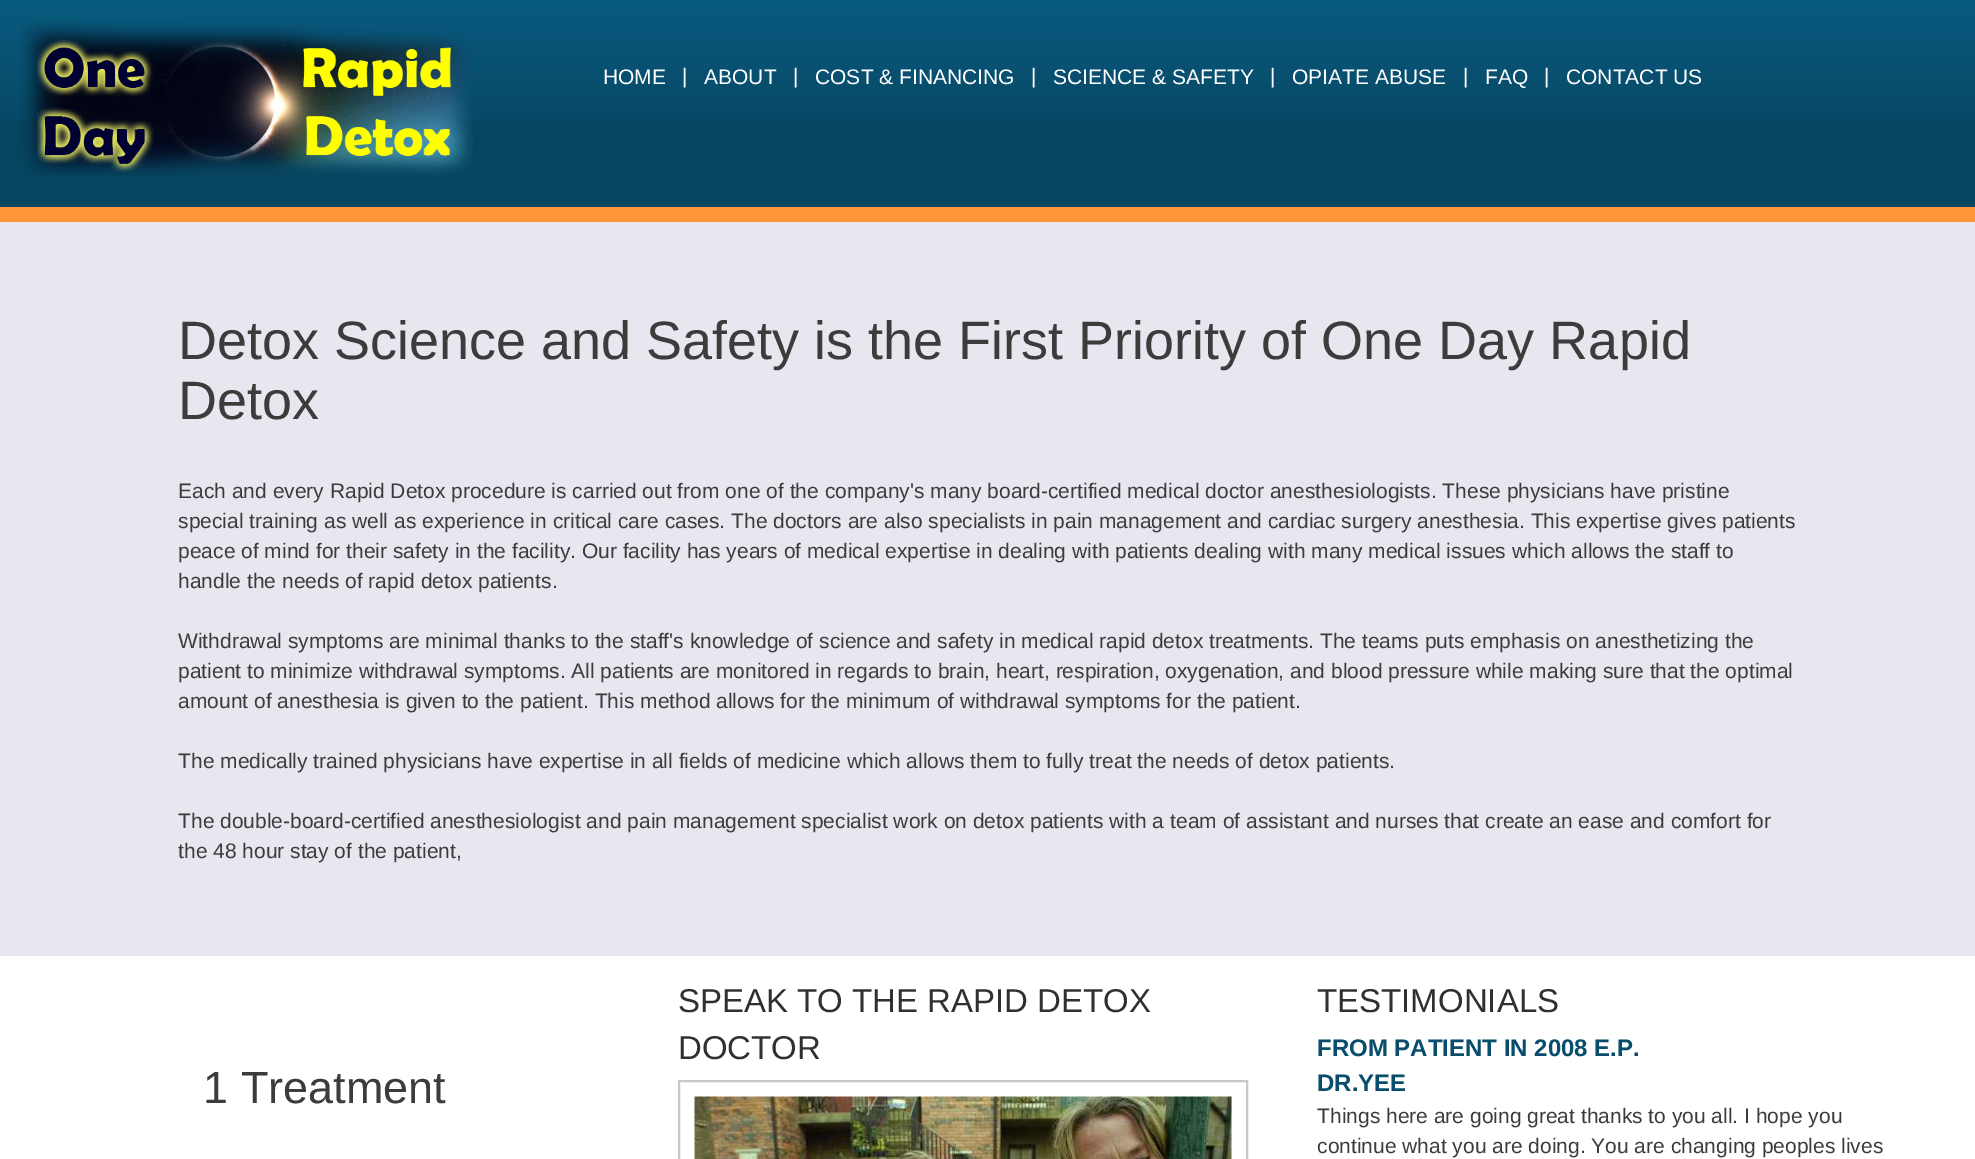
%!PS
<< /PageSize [1975 1159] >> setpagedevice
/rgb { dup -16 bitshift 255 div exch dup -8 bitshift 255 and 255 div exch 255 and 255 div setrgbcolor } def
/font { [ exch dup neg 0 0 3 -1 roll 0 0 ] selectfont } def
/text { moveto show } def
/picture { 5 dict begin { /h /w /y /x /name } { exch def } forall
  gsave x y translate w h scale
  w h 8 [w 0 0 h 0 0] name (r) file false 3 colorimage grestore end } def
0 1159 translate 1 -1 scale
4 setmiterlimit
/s1 { /LiberationSans-Regular 21 font 16#FFFFFF rgb } def
/s2 { /LiberationSans-Regular 54 font 16#3D3C3C rgb } def
/s3 { /LiberationSans-Regular 21 font 16#3D3C3C rgb } def
/s4 { /LiberationSans-Regular 45 font 16#3D3C3C rgb } def
/s5 { /LiberationSans-Regular 33 font 16#303030 rgb } def
/s6 { /LiberationSans-Bold 24 font 16#084D6B rgb } def
16#FFFFFF rgb
0 0 1975 1159 rectfill
16#064560 rgb
0 120 1975 87 rectfill
(pic1.raw) 0 0 1975 120 picture
(pic2.raw) 20 20 453 157 picture
s1
(HOME) 603 84 text
(|) 682 83 text
(ABOUT) 704 84 text
(|) 793 83 text
(COST & FINANCING) 815 84 text
(|) 1031 83 text
(SCIENCE & SAFETY) 1053 84 text
(|) 1270 83 text
(OPIATE ABUSE) 1292 84 text
(|) 1463 83 text
(FAQ) 1485 84 text
(|) 1544 83 text
(CONTACT US) 1566 84 text
16#FF9639 rgb
0 207 1975 15 rectfill
16#E7E7EF rgb
0 222 1975 734 rectfill
s2
(Detox Science and Safety is the First Priority of One Day Rapid) 178 359 text
(Detox) 178 419 text
s3
(Each and every Rapid Detox procedure is carried out from one of the company's many board-certified medical doctor anesthesiologists. These physicians have pristine) 178 498 text
(special training as well as experience in critical care cases. The doctors are also specialists in pain management and cardiac surgery anesthesia. This expertise gives patients) 178 528 text
(peace of mind for their safety in the facility. Our facility has years of medical expertise in dealing with patients dealing with many medical issues which allows the staff to) 178 558 text
(handle the needs of rapid detox patients.) 178 588 text
(Withdrawal symptoms are minimal thanks to the staff's knowledge of science and safety in medical rapid detox treatments. The teams puts emphasis on anesthetizing the) 178 648 text
(patient to minimize withdrawal symptoms. All patients are monitored in regards to brain, heart, respiration, oxygenation, and blood pressure while making sure that the optimal) 178 678 text
(amount of anesthesia is given to the patient. This method allows for the minimum of withdrawal symptoms for the patient.) 178 708 text
(The medically trained physicians have expertise in all fields of medicine which allows them to fully treat the needs of detox patients.) 178 768 text
(The double-board-certified anesthesiologist and pain management specialist work on detox patients with a team of assistant and nurses that create an ease and comfort for) 178 828 text
(the 48 hour stay of the patient,) 178 858 text
s4
(1 Treatment) 203 1103 text
s5
(SPEAK TO THE RAPID DETOX) 678 1012 text
(DOCTOR) 678 1059 text
16#CAC7C7 rgb
2 setlinewidth
679 1081 568 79 rectstroke
(pic3.raw) 694 1096 538 63 picture
s5
(TESTIMONIALS) 1317 1012 text
s6
(FROM PATIENT IN 2008 E.P.) 1317 1056 text
(DR.YEE) 1317 1091 text
s3
(Things here are going great thanks to you all. I hope you) 1317 1123 text
(continue what you are doing. You are changing peoples lives) 1317 1153 text
showpage
